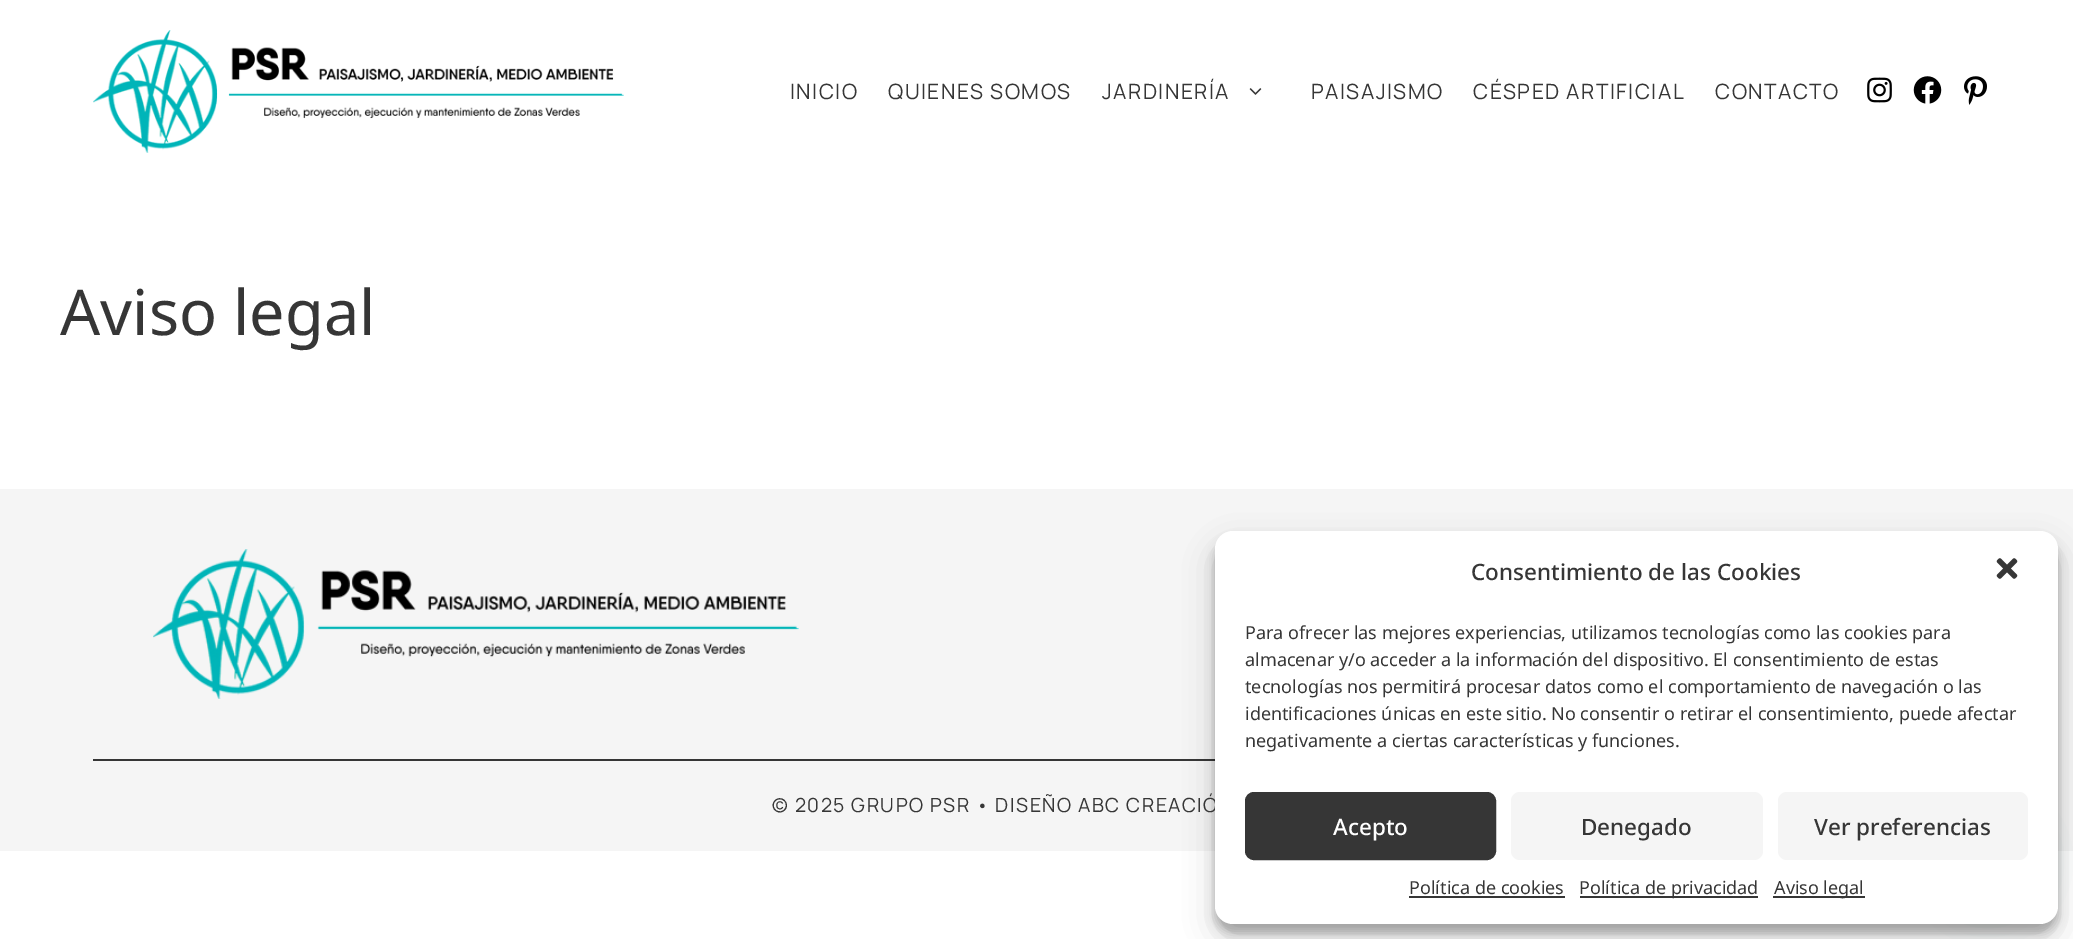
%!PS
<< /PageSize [2073 939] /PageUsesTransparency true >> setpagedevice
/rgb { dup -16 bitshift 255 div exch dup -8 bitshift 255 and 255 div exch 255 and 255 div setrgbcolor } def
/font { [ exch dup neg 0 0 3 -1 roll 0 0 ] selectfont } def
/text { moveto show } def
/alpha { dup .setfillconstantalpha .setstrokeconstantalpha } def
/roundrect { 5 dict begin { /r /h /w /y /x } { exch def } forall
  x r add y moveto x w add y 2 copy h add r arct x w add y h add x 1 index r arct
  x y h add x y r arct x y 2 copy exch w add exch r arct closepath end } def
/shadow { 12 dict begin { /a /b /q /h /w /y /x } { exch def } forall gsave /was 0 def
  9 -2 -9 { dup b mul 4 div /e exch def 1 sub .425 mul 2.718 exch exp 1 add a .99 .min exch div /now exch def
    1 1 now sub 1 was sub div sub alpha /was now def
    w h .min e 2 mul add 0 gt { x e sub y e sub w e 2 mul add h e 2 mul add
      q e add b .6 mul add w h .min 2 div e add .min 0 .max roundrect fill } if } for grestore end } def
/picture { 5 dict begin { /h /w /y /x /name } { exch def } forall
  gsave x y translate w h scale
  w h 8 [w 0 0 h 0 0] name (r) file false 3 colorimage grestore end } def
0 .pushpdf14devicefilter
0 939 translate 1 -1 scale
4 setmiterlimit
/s1 { /NotoSans-Regular 63 font 16#363636 rgb } def
/s2 { /NotoSans-Medium 22.5 font 16#363636 rgb } def
/s3 { /NotoSans-Regular 18 font 16#363636 rgb } def
/s4 { /NotoSans-Medium 22.5 font 16#FFFFFF rgb } def
16#FFFFFF rgb
0 0 2073 939 rectfill
(pic1.raw) 93 30 531 123 picture
/Manrope-Regular 21 font
16#363636 rgb
790 99 moveto 1.5 0 (INICIO) ashow
888 99 moveto 1.5 0 (QUIENES SOMOS) ashow
1102 99 moveto 1.5 0 (JARDINERÍA) ashow
(pic2.raw) 1249 88 13 7 picture
1311 99 moveto 1.5 0 (PAISAJISMO) ashow
1473 99 moveto 1.5 0 (CÉSPED ARTIFICIAL) ashow
1715 99 moveto 1.5 0 (CONTACTO) ashow
(pic3.raw) 1867 77 25 26 picture
(pic4.raw) 1913 76 29 28 picture
(pic5.raw) 1964 76 23 29 picture
s1
(Aviso legal) 60 335 text
16#F5F5F5 rgb
0 489 2073 362 rectfill
16#363636 rgb
93 759 1122 2 rectfill
16#000000 rgb
1215 540 843 393 18 4.5 0.23 shadow
1215 546 843 393 18 15 0.19 shadow
/Manrope-Regular 19.5 font
16#363636 rgb
772 812 moveto 1.5 0 (© 2025 GRUPO PSR • DISEÑO ABC CREACIÓ) ashow
16#075E54 rgb
1943 816 90 90 45 18 0.24 shadow
16#FFFFFF rgb
1215 531 843 393 18 roundrect fill
s2
(Consentimiento de las Cookies) 1471 580 text
(pic6.raw) 1996 558 22 21 picture
s3
(Para ofrecer las mejores experiencias, utilizamos tecnologías como las cookies para) 1245 639 text
(almacenar y/o acceder a la información del dispositivo. El consentimiento de estas) 1245 666 text
(tecnologías nos permitirá procesar datos como el comportamiento de navegación o las) 1245 693 text
(identificaciones únicas en este sitio. No consentir o retirar el consentimiento, puede afectar) 1245 720 text
(negativamente a ciertas características y funciones.) 1245 747 text
1246 793 249 66 8 roundrect gsave fill grestore
2 setlinewidth
stroke
s4
(Acepto) 1333 835 text
16#F5F5F5 rgb
1511 792 252 68 9 roundrect fill
s2
(Denegado) 1581 835 text
16#F5F5F5 rgb
1778 792 250 68 9 roundrect fill
s2
(Ver preferencias) 1814 835 text
s3
(Política de cookies) 1409 894 text
1409 896 156 2 rectfill
1580 896 178 2 rectfill
(Política de privacidad) 1579 894 text
1773 896 92 2 rectfill
(Aviso legal) 1774 894 text
(pic7.raw) 153 549 646 150 picture
.poppdf14devicefilter showpage
